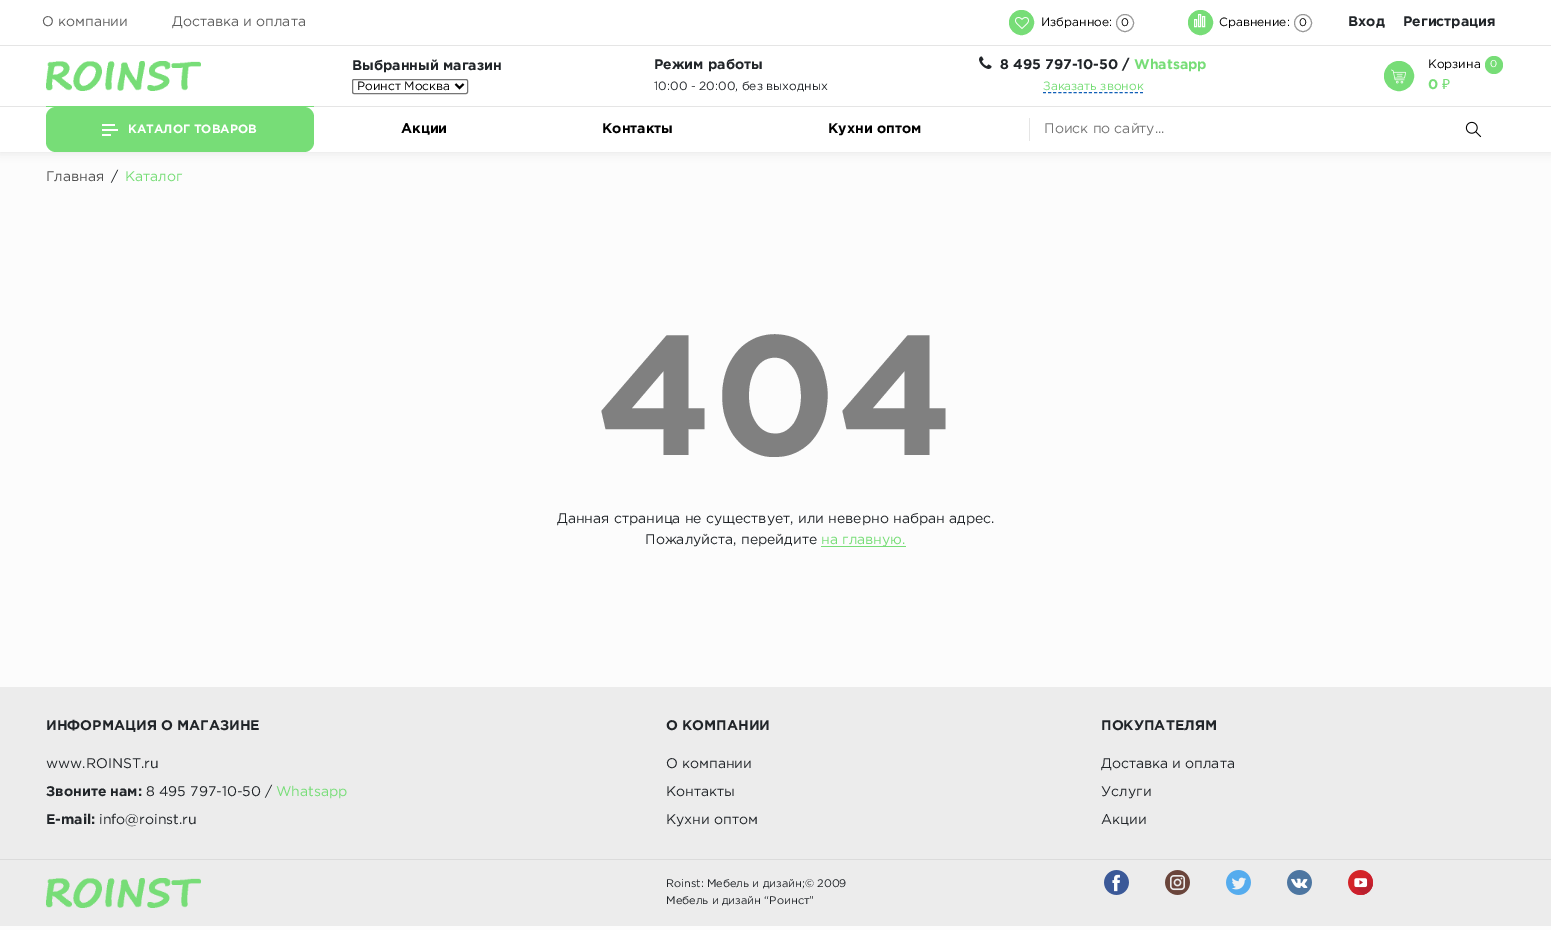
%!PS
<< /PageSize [1551 930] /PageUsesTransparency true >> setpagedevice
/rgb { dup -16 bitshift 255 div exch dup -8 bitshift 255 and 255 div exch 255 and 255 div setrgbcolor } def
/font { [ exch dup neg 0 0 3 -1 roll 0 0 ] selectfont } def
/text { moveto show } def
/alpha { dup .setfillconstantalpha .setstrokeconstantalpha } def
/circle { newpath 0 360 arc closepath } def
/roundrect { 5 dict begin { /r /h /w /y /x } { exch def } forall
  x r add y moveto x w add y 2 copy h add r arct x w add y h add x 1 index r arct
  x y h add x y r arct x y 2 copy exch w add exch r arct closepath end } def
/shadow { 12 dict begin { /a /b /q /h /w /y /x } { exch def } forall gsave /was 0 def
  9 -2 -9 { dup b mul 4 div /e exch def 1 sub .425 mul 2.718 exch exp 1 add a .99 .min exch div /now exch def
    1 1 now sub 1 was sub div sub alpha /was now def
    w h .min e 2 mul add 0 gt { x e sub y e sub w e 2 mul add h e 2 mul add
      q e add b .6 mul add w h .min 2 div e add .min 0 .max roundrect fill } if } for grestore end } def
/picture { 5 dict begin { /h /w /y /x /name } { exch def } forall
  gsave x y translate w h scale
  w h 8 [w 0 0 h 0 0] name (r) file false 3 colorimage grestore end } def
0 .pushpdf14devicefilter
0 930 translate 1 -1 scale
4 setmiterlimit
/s1 { /Gotham-Regular 14 font 16#5F5F5F rgb } def
/s2 { /Gotham-Regular 12 font 16#000000 rgb } def
/s3 { /Gotham-Regular 11 font 16#000000 rgb } def
/s4 { /Gotham-Bold 14 font 16#212529 rgb } def
/s5 { /Gotham-Regular 12 font 16#212529 rgb } def
/s6 { /Gotham-Bold 14 font 16#77DD77 rgb } def
/s7 { /Gotham-Regular 12 font 16#77DD77 rgb } def
/s8 { /Gotham-Regular 10 font 16#FFFFFF rgb } def
/s9 { /NotoSans-Regular 14 font 16#77DD77 rgb } def
/s10 { /Gotham-Bold 12 font 16#FFFFFF rgb } def
/s11 { /Gotham-Bold 14 font 16#000000 rgb } def
/s12 { /Gotham-Regular 14 font 16#757575 rgb } def
/s13 { /Gotham-Regular 14 font 16#505050 rgb } def
/s14 { /Gotham-Regular 14 font 16#212529 rgb } def
/s15 { /Gotham-Regular 14 font 16#77DD77 rgb } def
/s16 { /Gotham-Bold 170 font 16#808080 rgb } def
/s17 { /Gotham-Regular 11 font 16#212529 rgb } def
16#FCFCFC rgb
0 0 1551 930 rectfill
16#000000 rgb
0 0 1551 152 0 5 0.1 shadow
16#FFFFFF rgb
0 0 1551 152 rectfill
16#E5E5E5 rgb
0 45 1551 1 rectfill
s1
(О компании) 42 26 text
(Доставка и оплата) 172 26 text
16#77DD77 rgb
1021.5 22.5 12 circle gsave fill grestore
stroke
(pic1.raw) 1015 17 14 12 picture
s2
(Избранное:) 1041 26 text
16#999999 rgb
1125 23 8.5 circle stroke
s3
(0) 1121 26 text
16#77DD77 rgb
1200.5 22.5 12 circle gsave fill grestore
stroke
16#FFFFFF rgb
1194.5 19.5 2 7 rectstroke
1198.5 14.5 2 12 rectstroke
1202.5 16.5 2 10 rectstroke
s2
(Сравнение:) 1219 26 text
16#999999 rgb
1303 23 8.5 circle stroke
s3
(0) 1299 26 text
s4
(Вход) 1348 26 text
(Регистрация) 1403 26 text
16#E5E5E5 rgb
0 106 1551 1 rectfill
(pic2.raw) 46 61 155 30 picture
s4
(Выбранный магазин) 352 70 text
16#767676 rgb
352.5 79.5 115 14 1.5 roundrect stroke
16#000000 rgb
2 setlinewidth
455.5 84 moveto 459.5 88 lineto 463.5 84 lineto stroke
s2
(Роинст Москва) 357 90 text
s4
(Режим работы) 654 69 text
s5
(10:00 - 20:00, без выходных) 654 90 text
(pic3.raw) 979 56 13 13 picture
s4
(8 495 797-10-50 /) 1000 69 text
s6
(Whatsapp) 1134 69 text
s7
(Заказать звонок) 1043 90 text
16#105FB7 rgb
1 setlinewidth
[3 2.11] 0 setdash
1043 92.5 moveto 1143 92.5 lineto stroke
16#77DD77 rgb
1399 76 14.5 circle gsave fill grestore
[] 0 setdash
stroke
(pic4.raw) 1391 69 15 15 picture
1494 65 9 circle fill
s8
(0) 1490 67 text
s6
(0) 1428 89 text
s9
(₽) 1442 89 text
s2
(Корзина) 1428 68 text
16#77DD77 rgb
46 107 268 45 10 roundrect fill
46 106 268 1 rectfill
16#FFFFFF rgb
102 129 16 2 rectfill
102 124 13 2 rectfill
102 134 9 2 rectfill
s10
(КАТАЛОГ ТОВАРОВ) 128 133 text
s11
(Акции) 401 133 text
(Контакты) 602 133 text
(Кухни оптом) 828 133 text
16#E5E5E5 rgb
1029 118 1 23 rectfill
s12
(Поиск по сайту...) 1044 133 text
(pic5.raw) 1465 121 17 17 picture
s13
(Главная) 46 181 text
s14
(/) 111 181 text
s15
(Каталог) 125 181 text
s16
(404) 596 455 text
s14
(Данная страница не существует, или неверно набран адрес.) 557 523 text
(Пожалуйста, перейдите) 645 544 text
16#77DD77 rgb
821 546 85 1 rectfill
(на главную.) 821 544 text
16#ECECEC rgb
0 687 1551 239 rectfill
s4
(ИНФОРМАЦИЯ О МАГАЗИНЕ) 46 730 text
s14
(www.ROINST.ru) 46 768 text
s4
(Звоните нам:) 46 796 text
s14
(8 495 797-10-50 /) 146 796 text
s15
(Whatsapp) 276 796 text
s4
(E-mail:) 46 824 text
s14
(info@roinst.ru) 99 824 text
s4
(О КОМПАНИИ) 666 730 text
s14
(О компании) 666 768 text
(Контакты) 666 796 text
(Кухни оптом) 666 824 text
s4
(ПОКУПАТЕЛЯМ) 1101 730 text
s14
(Доставка и оплата) 1101 768 text
(Услуги) 1101 796 text
(Акции) 1101 824 text
16#DBDBDB rgb
0 859 1551 1 rectfill
(pic6.raw) 46 878 155 30 picture
s17
(Roinst: Мебель и дизайн;© 2009) 666 887 text
(Мебель и дизайн “Роинст”) 666 904 text
(pic7.raw) 1104 870 25 25 picture
(pic8.raw) 1165 870 25 25 picture
(pic9.raw) 1226 870 25 25 picture
(pic10.raw) 1287 870 25 25 picture
(pic11.raw) 1348 870 25 25 picture
.poppdf14devicefilter showpage
